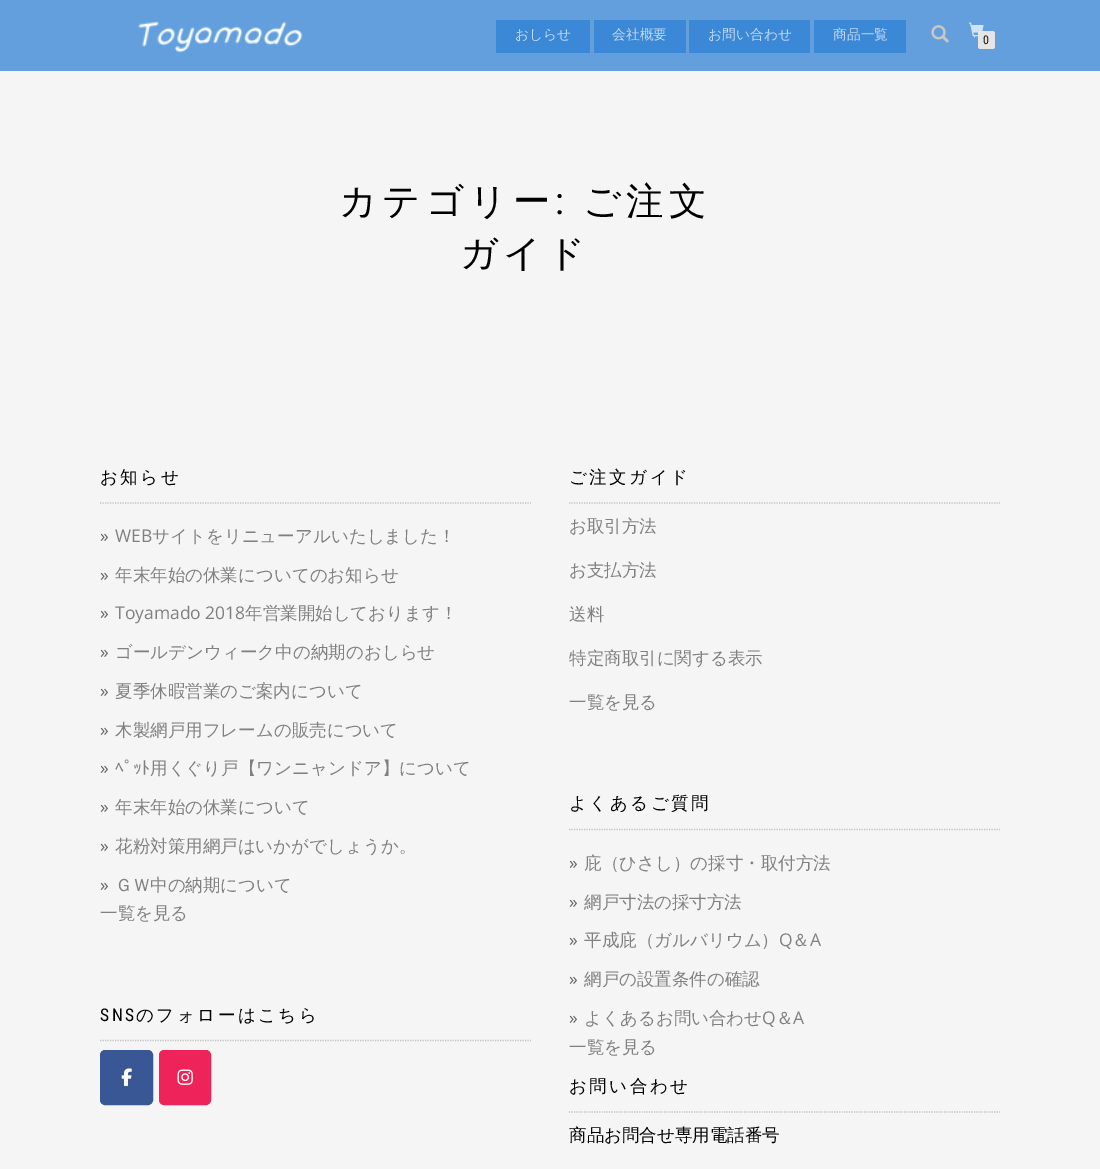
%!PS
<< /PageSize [1100 1169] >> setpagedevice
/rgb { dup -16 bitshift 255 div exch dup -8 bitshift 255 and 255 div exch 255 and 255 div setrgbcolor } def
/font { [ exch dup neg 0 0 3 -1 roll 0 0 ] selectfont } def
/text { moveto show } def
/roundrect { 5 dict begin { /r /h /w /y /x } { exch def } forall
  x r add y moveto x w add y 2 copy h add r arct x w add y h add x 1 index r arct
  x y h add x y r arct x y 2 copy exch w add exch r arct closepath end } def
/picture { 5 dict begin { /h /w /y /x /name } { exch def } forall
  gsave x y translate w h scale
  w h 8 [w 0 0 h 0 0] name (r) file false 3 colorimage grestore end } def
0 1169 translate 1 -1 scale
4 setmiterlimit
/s1 { /WenQuanYiZenHei-Medium 13.75 font 16#C4DBF3 rgb } def
/s2 { /RobotoCondensed-Regular 12 font 16#111111 rgb } def
/s3 { /OpenSans-Regular 17.5 font 16#666666 rgb } def
/s4 { /OpenSans-Regular 17.5 font 16#808080 rgb } def
/s5 { /WenQuanYiZenHei-Medium 17.5 font 16#808080 rgb } def
/s6 { /IPAPGothic-Regular 17.5 font 16#808080 rgb } def
/s7 { /WenQuanYiZenHei-Medium 17.5 font 16#000000 rgb } def
16#F5F5F5 rgb
0 0 1100 1169 rectfill
16#629FDC rgb
0 0 1100 71 rectfill
(pic1.raw) 138 21 165 32 picture
16#3B88D6 rgb
496 20 94 33 rectfill
s1
(おしらせ) 515 39 text
16#3B88D6 rgb
594 20 92 33 rectfill
s1
(会社概要) 612 39 text
16#3B88D6 rgb
689 20 121 33 rectfill
s1
(お問い合わせ) 708 39 text
16#3B88D6 rgb
814 20 92 33 rectfill
s1
(商品一覧) 833 39 text
(pic2.raw) 931 25 18 18 picture
(pic3.raw) 968 22 16 16 picture
16#E5E5E5 rgb
978 31 17 18 2.5 roundrect fill
s2
(0) 983 44 text
/WenQuanYiZenHei-Medium 37.5 font
16#000000 rgb
339 214 moveto 5 0 (カテゴリー) ashow
/RobotoCondensed-Regular 37.5 font
555 214 moveto 5 0 (:) ashow
/WenQuanYiZenHei-Medium 37.5 font
583 214 moveto 5 0 (ご注文) ashow
460 266 moveto 5 0 (ガイド) ashow
16#C2C2C2 rgb
1.2 setlinewidth
[1.25 1.25] 0 setdash
100 503 moveto 531 503 lineto stroke
/WenQuanYiZenHei-Medium 17.5 font
16#000000 rgb
100 483 moveto 2.5 0 (お知らせ) ashow
s3
(») 100 542 text
s4
(WEB) 115 542 text
s5
(サイトをリニューアルいたしました！) 152 542 text
s3
(») 100 581 text
s5
(年末年始の休業についてのお知らせ) 115 581 text
s3
(») 100 619 text
s4
(Toyamado 2018) 115 619 text
s5
(年営業開始しております！) 245 619 text
s3
(») 100 658 text
s5
(ゴールデンウィーク中の納期のおしらせ) 115 658 text
s3
(») 100 697 text
s5
(夏季休暇営業のご案内について) 115 697 text
s3
(») 100 736 text
s5
(木製網戸用フレームの販売について) 115 736 text
s3
(») 100 774 text
s6
(ﾍﾟｯﾄ) 115 774 text
s5
(用くぐり戸【ワンニャンドア】について) 150 774 text
s3
(») 100 813 text
s5
(年末年始の休業について) 115 813 text
s3
(») 100 852 text
s5
(花粉対策用網戸はいかがでしょうか。) 115 852 text
s3
(») 100 891 text
s5
(ＧＷ中の納期について) 115 891 text
(一覧を見る) 100 919 text
16#C2C2C2 rgb
100 1040.5 moveto 531 1040.5 lineto stroke
/RobotoCondensed-Regular 17.5 font
16#000000 rgb
100 1021 moveto 2.5 0 (SNS) ashow
/WenQuanYiZenHei-Medium 17.5 font
136 1021 moveto 2.5 0 (のフォローはこちら) ashow
16#3A5795 rgb
100.5 1050.5 52 54 4.5 roundrect gsave fill grestore
1 setlinewidth
[] 0 setdash
stroke
(pic4.raw) 121 1068 11 18 picture
16#ED2359 rgb
159.5 1050.5 51 54 4.5 roundrect gsave fill grestore
stroke
(pic5.raw) 177 1069 16 16 picture
16#C2C2C2 rgb
1.2 setlinewidth
[1.25 1.25] 0 setdash
569 503 moveto 1000 503 lineto stroke
16#000000 rgb
569 483 moveto 2.5 0 (ご注文ガイド) ashow
s5
(お取引方法) 569 532 text
(お支払方法) 569 576 text
(送料) 569 620 text
(特定商取引に関する表示) 569 664 text
(一覧を見る) 569 708 text
16#C2C2C2 rgb
569 829.5 moveto 1000 829.5 lineto stroke
16#000000 rgb
569 809 moveto 2.5 0 (よくあるご質問) ashow
s3
(») 569 869 text
s5
(庇（ひさし）の採寸・取付方法) 584 869 text
s3
(») 569 908 text
s5
(網戸寸法の採寸方法) 584 908 text
s3
(») 569 946 text
s5
(平成庇（ガルバリウム）) 584 946 text
s4
(Q) 779 946 text
s5
(＆) 792 946 text
s4
(A) 810 946 text
s3
(») 569 985 text
s5
(網戸の設置条件の確認) 584 985 text
s3
(») 569 1024 text
s5
(よくあるお問い合わせ) 584 1024 text
s4
(Q) 762 1024 text
s5
(＆) 776 1024 text
s4
(A) 793 1024 text
s5
(一覧を見る) 569 1053 text
16#C2C2C2 rgb
569 1112 moveto 1000 1112 lineto stroke
16#000000 rgb
569 1092 moveto 2.5 0 (お問い合わせ) ashow
(商品お問合せ専用電話番号) 569 1141 text
showpage
